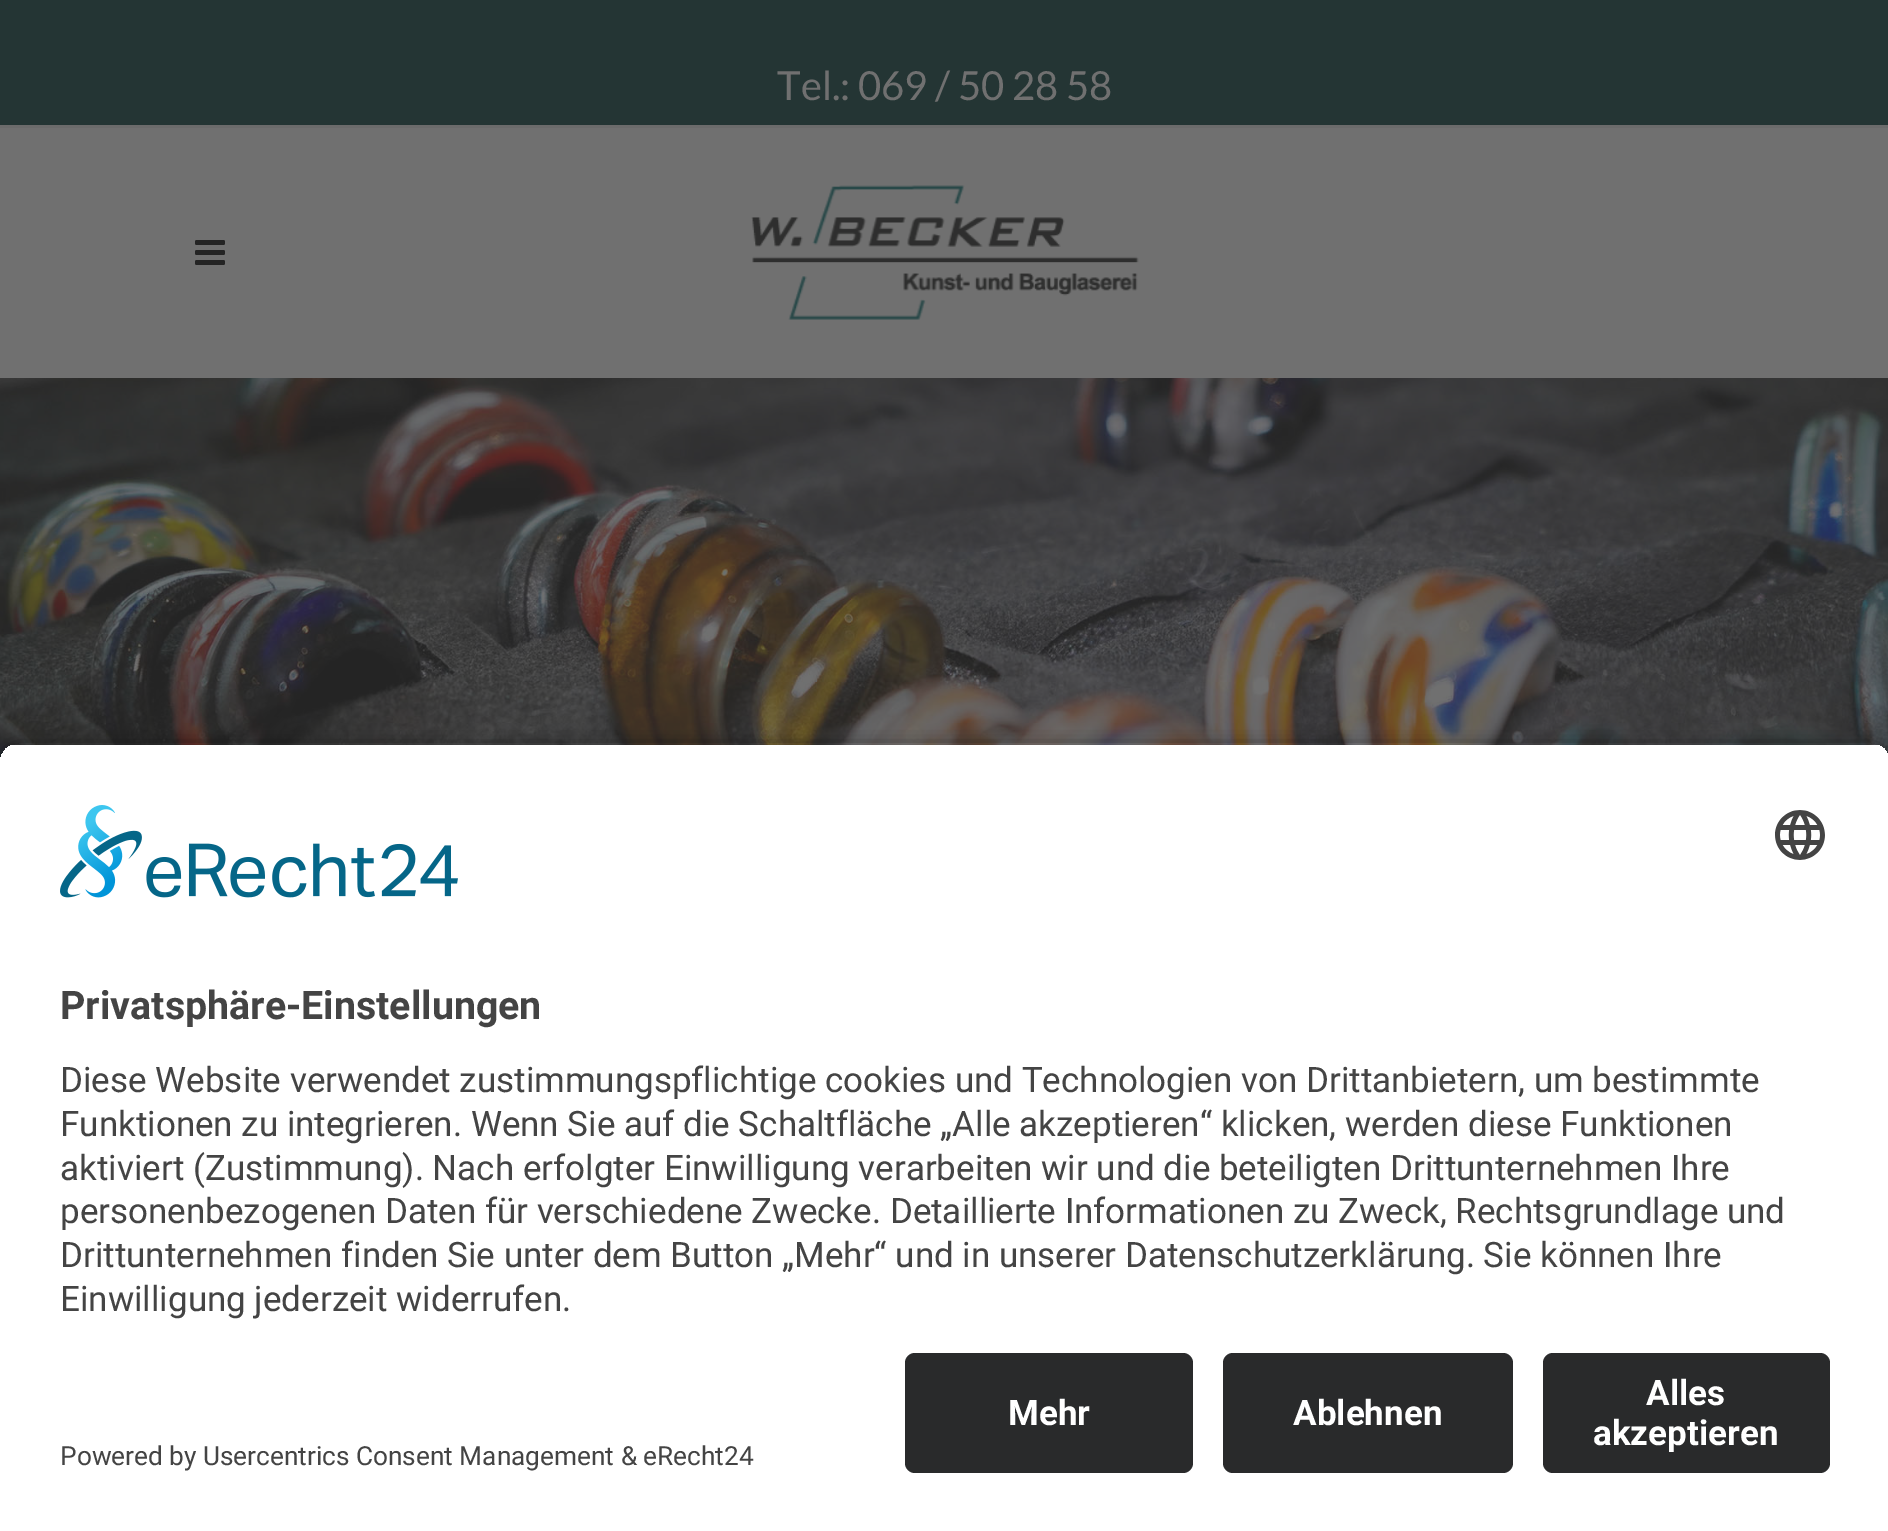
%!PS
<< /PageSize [1888 1531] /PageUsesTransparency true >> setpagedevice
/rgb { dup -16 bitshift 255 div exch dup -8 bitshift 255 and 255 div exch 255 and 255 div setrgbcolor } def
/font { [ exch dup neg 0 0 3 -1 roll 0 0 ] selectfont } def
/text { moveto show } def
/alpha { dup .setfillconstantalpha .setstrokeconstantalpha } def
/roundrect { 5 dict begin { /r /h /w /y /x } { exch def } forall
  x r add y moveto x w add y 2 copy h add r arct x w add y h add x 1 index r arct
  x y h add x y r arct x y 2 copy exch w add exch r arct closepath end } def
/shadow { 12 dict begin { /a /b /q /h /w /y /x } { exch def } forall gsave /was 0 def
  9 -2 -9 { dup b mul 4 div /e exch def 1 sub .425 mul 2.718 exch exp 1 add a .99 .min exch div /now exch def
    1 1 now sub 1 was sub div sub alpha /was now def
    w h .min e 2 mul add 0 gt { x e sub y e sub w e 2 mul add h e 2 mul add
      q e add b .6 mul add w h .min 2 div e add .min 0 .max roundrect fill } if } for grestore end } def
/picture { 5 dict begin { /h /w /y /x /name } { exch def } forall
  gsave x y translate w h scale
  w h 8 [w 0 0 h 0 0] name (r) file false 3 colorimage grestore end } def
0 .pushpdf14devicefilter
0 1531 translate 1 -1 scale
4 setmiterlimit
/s1 { /Lato-Regular 40 font 16#707070 rgb } def
/s2 { /Roboto-Bold 39.4 font 16#444444 rgb } def
/s3 { /Roboto-Regular 35 font 16#444444 rgb } def
/s4 { /Roboto-Bold 35 font 16#FFFFFF rgb } def
/s5 { /Roboto-Regular 26.25 font 16#444444 rgb } def
16#FFFFFF rgb
0 0 1888 1531 rectfill
16#243534 rgb
0 0 1888 125 rectfill
16#6B6B6B rgb
0 125 1888 3 rectfill
s1
(Tel.: 069 / 50 28 58) 777 100 text
0 128 1888 250 rectfill
(pic1.raw) 195 240 30 25 picture
(pic2.raw) 751 185 388 135 picture
(pic3.raw) 0 378 1888 385 picture
gsave
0 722 moveto 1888 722 lineto 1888 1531 lineto 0 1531 lineto closepath 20 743 moveto 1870 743 lineto 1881 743 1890 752 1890 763 curveto 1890 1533 lineto 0 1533 lineto 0 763 lineto 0 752 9 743 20 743 curveto closepath eoclip newpath
16#000000 rgb
0 750 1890 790 20 9 0.8 shadow
grestore
gsave
20 743 moveto 1870 743 lineto 1881 743 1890 752 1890 763 curveto 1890 1333 lineto 0 1333 lineto 0 763 lineto 0 752 9 743 20 743 curveto closepath clip newpath
16#FFFFFF rgb
0 745 1888 588 rectfill
grestore
(pic4.raw) 60 805 398 93 picture
(pic5.raw) 1775 810 50 50 picture
s2
(Privatsphäre-Einstellungen) 60 1019 text
s3
(Diese Website verwendet zustimmungspflichtige cookies und Technologien von Drittanbietern, um bestimmte) 60 1092 text
(Funktionen zu integrieren. Wenn Sie auf die Schaltfläche „Alle akzeptieren“ klicken, werden diese Funktionen) 60 1136 text
(aktiviert \(Zustimmung\). Nach erfolgter Einwilligung verarbeiten wir und die beteiligten Drittunternehmen Ihre) 60 1180 text
(personenbezogenen Daten für verschiedene Zwecke. Detaillierte Informationen zu Zweck, Rechtsgrundlage und) 60 1223 text
(Drittunternehmen finden Sie unter dem Button „Mehr“ und in unserer Datenschutzerklärung. Sie können Ihre) 60 1267 text
(Einwilligung jederzeit widerrufen.) 60 1311 text
16#292A2B rgb
905 1353 288 120 10 roundrect fill
s4
(Mehr) 1008 1425 text
16#292A2B rgb
1223 1353 290 120 10 roundrect fill
s4
(Ablehnen) 1293 1425 text
16#292A2B rgb
1543 1353 287 120 10 roundrect fill
s4
(Alles) 1646 1405 text
(akzeptieren) 1593 1445 text
s5
(Powered by Usercentrics Consent Management & eRecht24) 60 1465 text
.poppdf14devicefilter showpage
